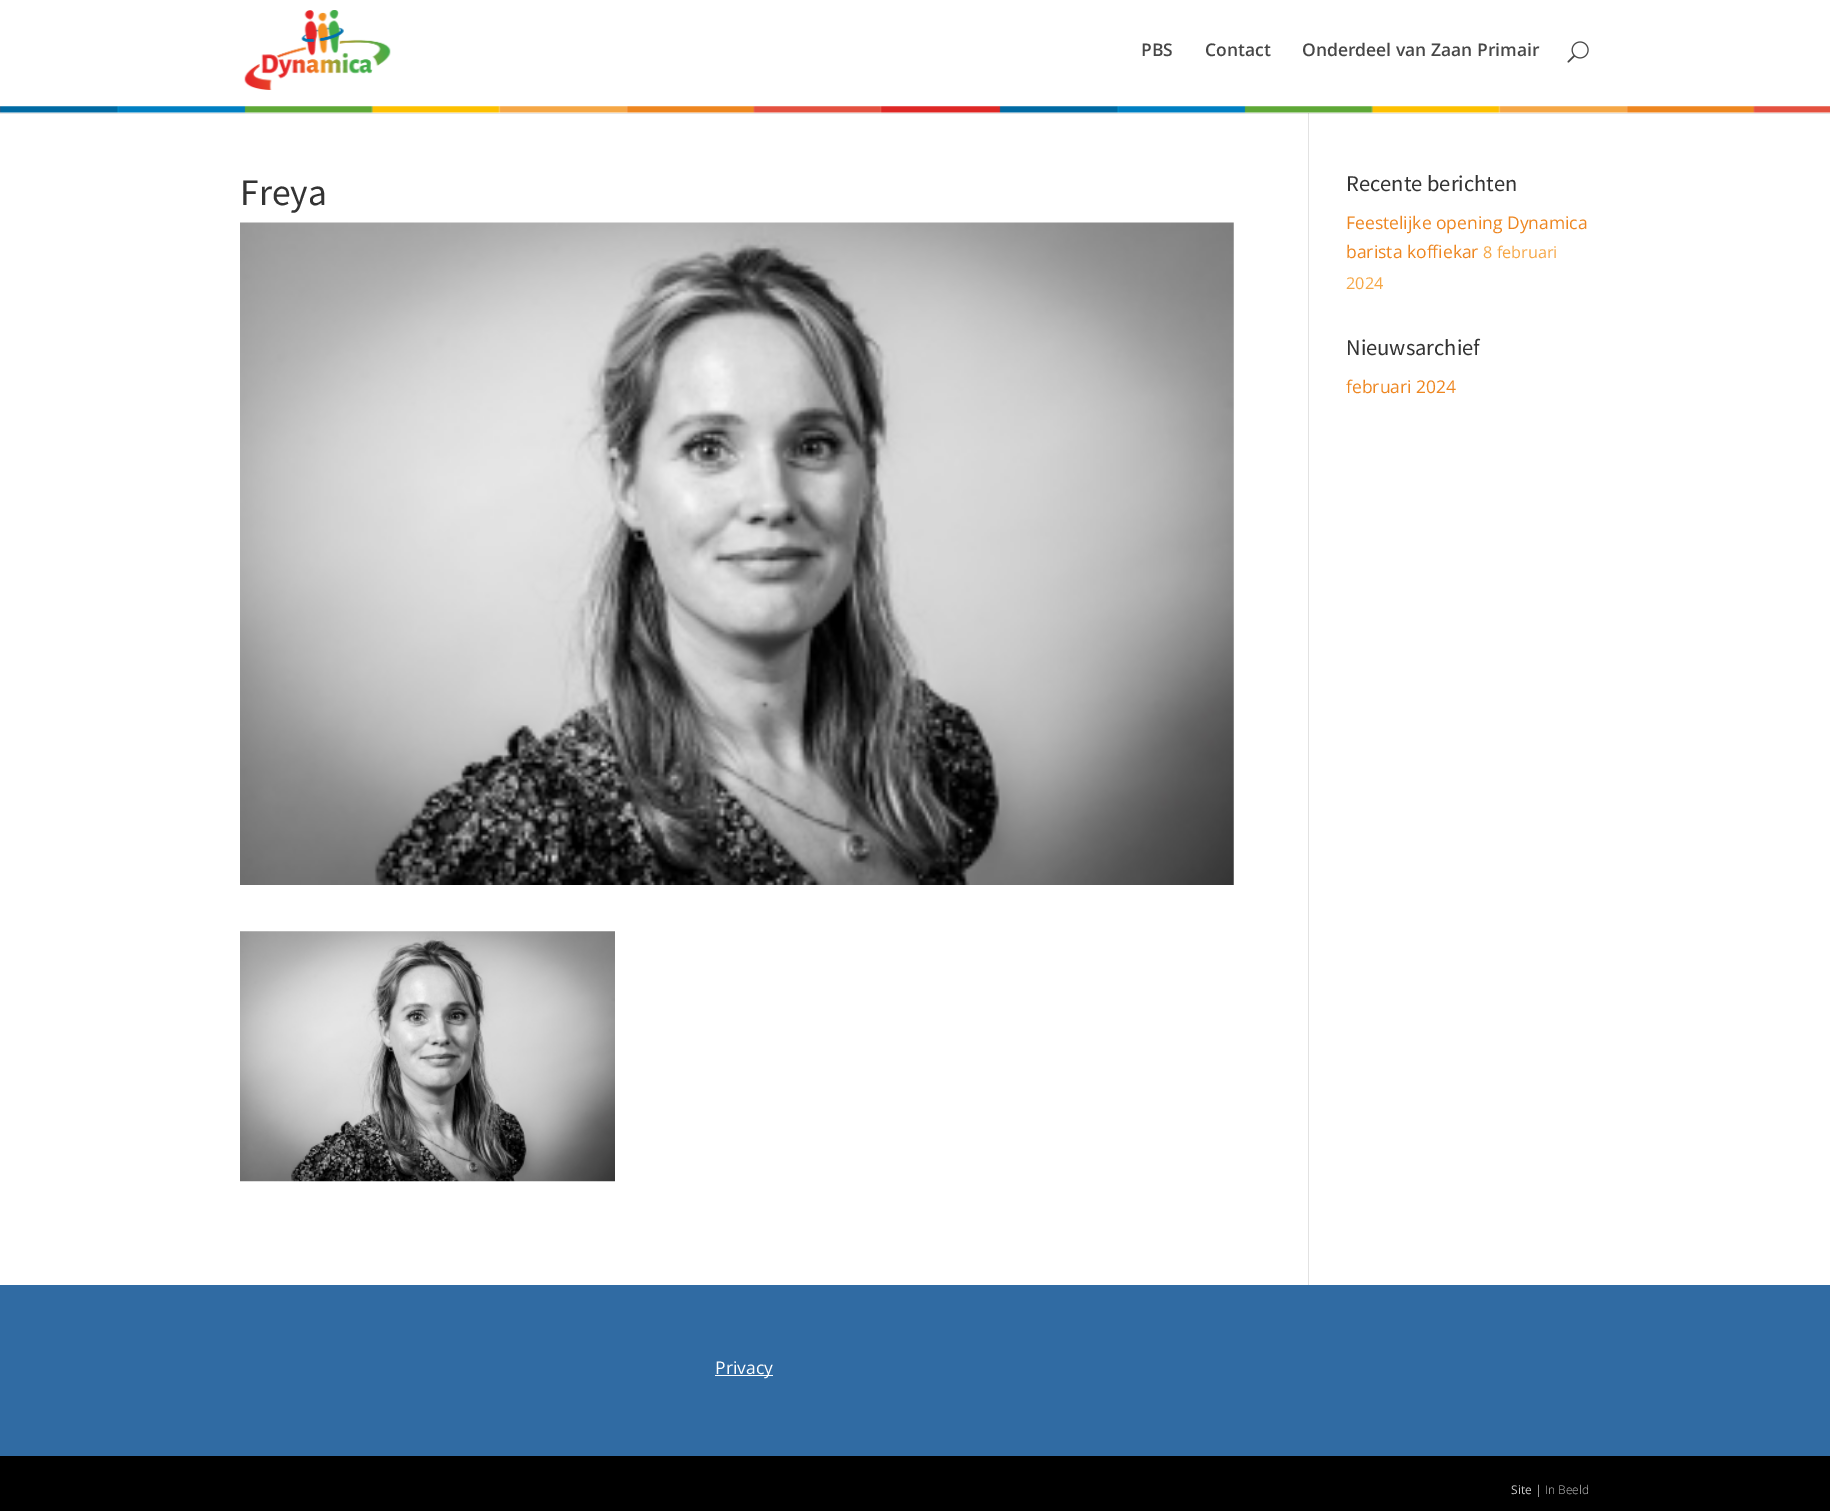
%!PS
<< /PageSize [1830 1511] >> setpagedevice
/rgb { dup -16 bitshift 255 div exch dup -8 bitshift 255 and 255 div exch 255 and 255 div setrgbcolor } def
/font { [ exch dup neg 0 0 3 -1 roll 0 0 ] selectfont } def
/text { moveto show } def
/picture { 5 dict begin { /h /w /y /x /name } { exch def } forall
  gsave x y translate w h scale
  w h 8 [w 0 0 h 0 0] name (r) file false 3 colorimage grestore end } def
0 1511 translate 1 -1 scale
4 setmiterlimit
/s1 { /OpenSans-SemiBold 17.5 font 16#474747 rgb } def
/s2 { /SourceSansPro-Regular 37.5 font 16#333333 rgb } def
/s3 { /SourceSansPro-Regular 22.5 font 16#333333 rgb } def
/s4 { /OpenSans-Regular 17.5 font 16#EE8620 rgb } def
/s5 { /OpenSans-Regular 16.25 font 16#F6A745 rgb } def
/s6 { /OpenSans-Regular 17.5 font 16#FFFFFF rgb } def
/s7 { /OpenSans-Regular 12 font 16#CCCCCC rgb } def
/s8 { /OpenSans-Light 12 font 16#CCCCCC rgb } def
16#FFFFFF rgb
0 0 1830 1511 rectfill
16#E6E6E6 rgb
0 113 1830 1 rectfill
16#CBCBCB rgb
1308 112 1 2 rectfill
16#FFFFFF rgb
1308 112 1 1 rectfill
(pic1.raw) 0 106 1830 7 picture
(pic2.raw) 244 10 147 80 picture
s1
(PBS) 1141 56 text
(Contact) 1205 56 text
(Onderdeel van Zaan Primair) 1302 56 text
(pic3.raw) 1567 41 22 22 picture
16#E2E2E2 rgb
1308 114 1 1171 rectfill
s2
(Freya) 240 205 text
(pic4.raw) 240 222 994 663 picture
(pic5.raw) 240 931 375 251 picture
s3
(Recente berichten) 1346 191 text
s4
(Feestelijke opening Dynamica) 1346 229 text
(barista koffiekar) 1346 258 text
s5
(8 februari) 1483 258 text
(2024) 1346 289 text
s3
(Nieuwsarchief) 1346 355 text
s4
(februari 2024) 1346 393 text
16#306BA3 rgb
0 1285 1830 171 rectfill
16#FFFFFF rgb
715 1375 58 1 rectfill
(Privacy) 715 1374 text
16#000000 rgb
0 1456 1830 55 rectfill
s7
(Site |) 1511 1494 text
s8
(In Beeld) 1545 1494 text
showpage
